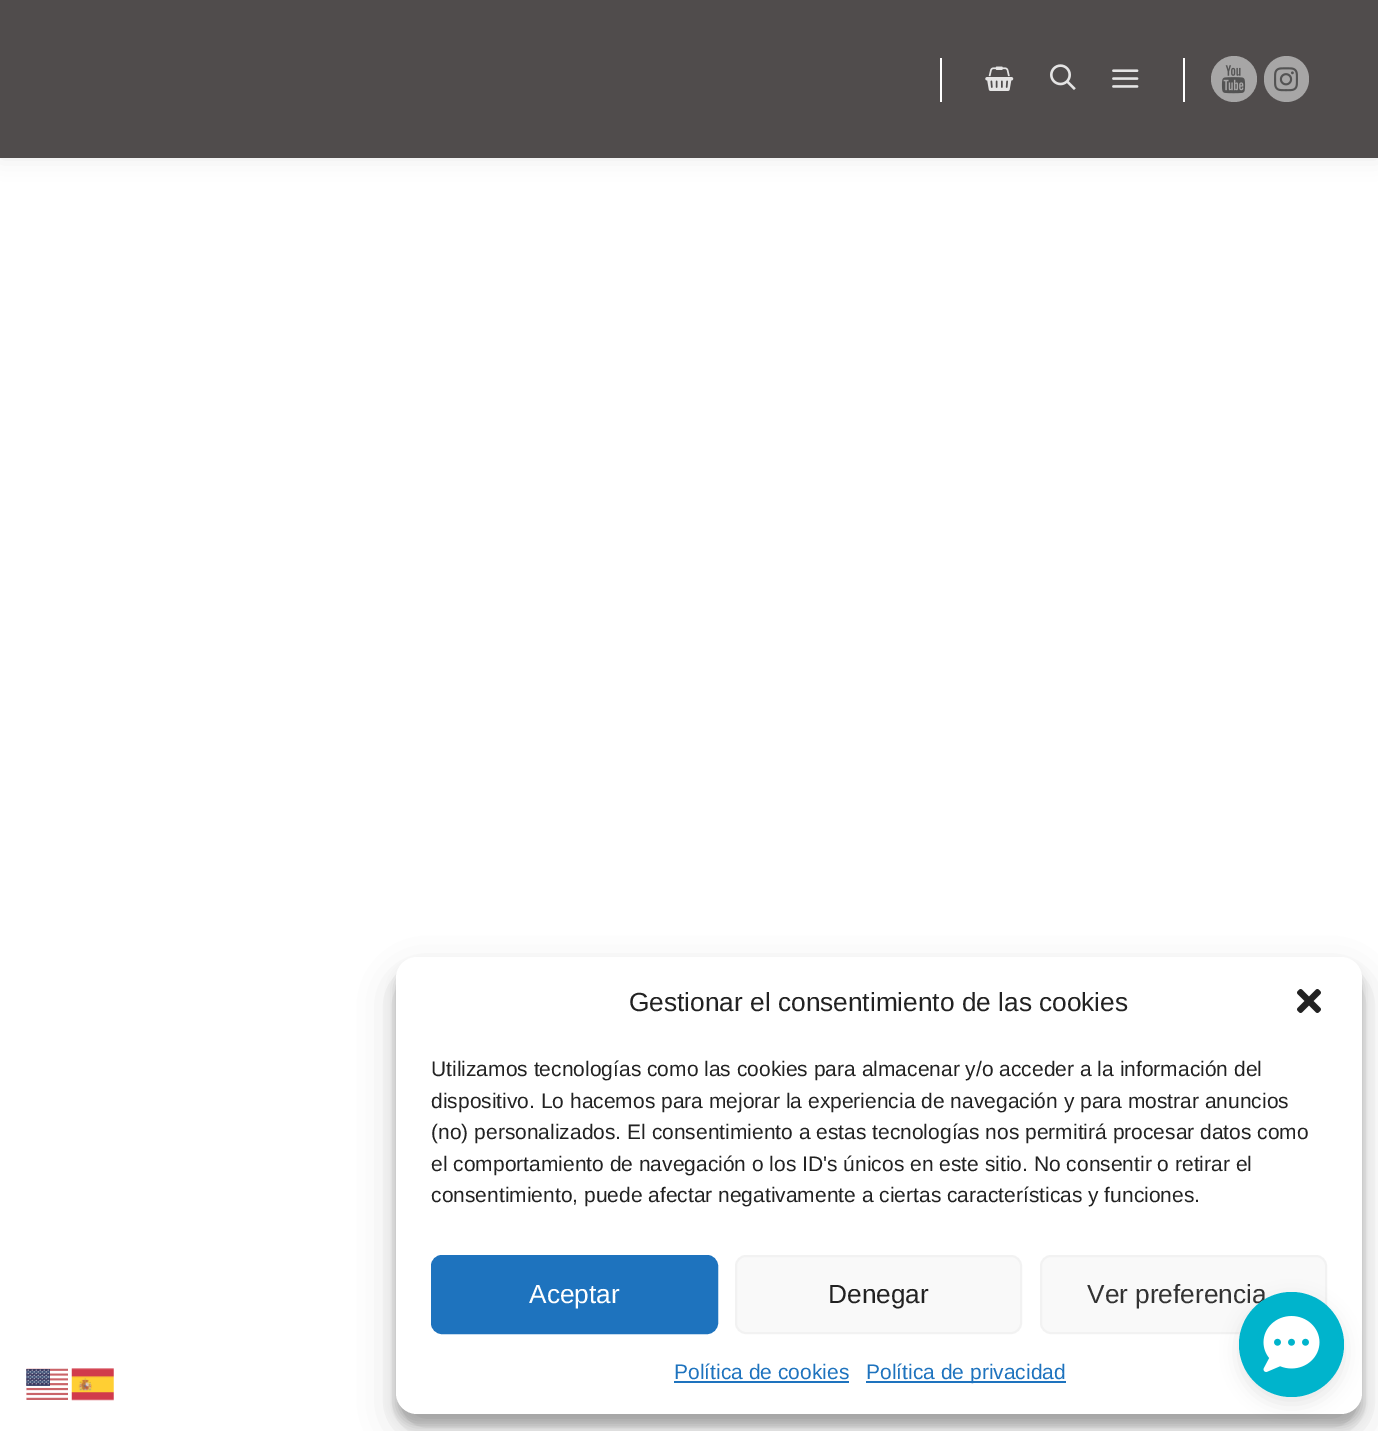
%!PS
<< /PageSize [1378 1431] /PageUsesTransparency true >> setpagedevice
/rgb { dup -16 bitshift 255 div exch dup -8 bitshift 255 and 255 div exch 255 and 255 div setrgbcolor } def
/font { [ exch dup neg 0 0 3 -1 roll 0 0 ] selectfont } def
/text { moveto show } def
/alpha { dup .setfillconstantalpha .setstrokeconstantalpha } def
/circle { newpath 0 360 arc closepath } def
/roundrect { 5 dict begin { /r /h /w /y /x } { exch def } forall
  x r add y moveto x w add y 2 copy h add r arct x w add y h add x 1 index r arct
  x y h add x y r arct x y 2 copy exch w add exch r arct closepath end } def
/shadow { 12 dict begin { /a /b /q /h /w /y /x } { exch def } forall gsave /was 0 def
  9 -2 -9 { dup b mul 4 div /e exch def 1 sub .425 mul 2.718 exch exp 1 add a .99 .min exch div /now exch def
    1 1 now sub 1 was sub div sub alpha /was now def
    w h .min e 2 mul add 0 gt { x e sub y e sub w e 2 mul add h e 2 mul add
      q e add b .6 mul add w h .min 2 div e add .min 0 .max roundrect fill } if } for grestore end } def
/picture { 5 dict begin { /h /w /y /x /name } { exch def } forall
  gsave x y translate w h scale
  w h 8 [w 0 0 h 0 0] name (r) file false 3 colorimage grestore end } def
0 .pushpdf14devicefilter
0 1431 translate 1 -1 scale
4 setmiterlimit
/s1 { /LiberationSans-Regular 26.25 font 16#222222 rgb } def
/s2 { /LiberationSans-Regular 21 font 16#222222 rgb } def
/s3 { /LiberationSans-Regular 26.25 font 16#FFFFFF rgb } def
/s4 { /LiberationSans-Regular 26.25 font 16#333333 rgb } def
/s5 { /LiberationSans-Regular 21 font 16#1E73BE rgb } def
16#FFFFFF rgb
0 0 1378 1431 rectfill
gsave
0 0 moveto 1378 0 lineto 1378 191 lineto 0 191 lineto closepath 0 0 moveto 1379 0 lineto 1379 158 lineto 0 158 lineto closepath eoclip newpath
16#000000 rgb
0 0 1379 158 0 10.5 0.09 shadow
grestore
0.7 alpha
16#050000 rgb
0 0 1378 158 rectfill
1 alpha
16#FFFFFF rgb
940 58 2 44 rectfill
(pic1.raw) 985 66 29 25 picture
(pic2.raw) 1050 64 26 26 picture
(pic3.raw) 1112 69 27 19 picture
1183 58 2 44 rectfill
16#A7A6A6 rgb
1234 79 23 circle fill
(pic4.raw) 1221 65 25 29 picture
1264 56 45 46 22.5 roundrect fill
(pic5.raw) 1274 67 24 25 picture
16#000000 rgb
396 968 966 457 21 5 0.23 shadow
396 975 966 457 21 17.5 0.19 shadow
16#FFFFFF rgb
396 957 966 457 21 roundrect fill
s1
(Gestionar el consentimiento de las cookies) 629 1011 text
(pic6.raw) 1297 989 24 24 picture
s2
(Utilizamos tecnologías como las cookies para almacenar y/o acceder a la información del) 431 1076 text
(dispositivo. Lo hacemos para mejorar la experiencia de navegación y para mostrar anuncios) 431 1108 text
(\(no\) personalizados. El consentimiento a estas tecnologías nos permitirá procesar datos como) 431 1139 text
(el comportamiento de navegación o los ID's únicos en este sitio. No consentir o retirar el) 431 1171 text
(consentimiento, puede afectar negativamente a ciertas características y funciones.) 431 1202 text
16#1E73BE rgb
432 1256 285 77 10 roundrect gsave fill grestore
2 setlinewidth
stroke
s3
(Aceptar) 529 1303 text
16#F9F9F9 rgb
736 1256 285 77 10 roundrect gsave fill grestore
16#F2F2F2 rgb
stroke
s1
(Denegar) 828 1303 text
16#F9F9F9 rgb
1041 1256 285 77 10 roundrect gsave fill grestore
16#F2F2F2 rgb
stroke
s4
(Ver preferencia) 1087 1303 text
s5
(Política de cookies) 674 1379 text
674 1381 175 2 rectfill
866 1381 200 2 rectfill
(Política de privacidad) 866 1379 text
(pic7.raw) 26 1368 42 32 picture
(pic8.raw) 71 1368 43 33 picture
16#000000 rgb
1239 1299 105 105 52.5 9 0.1 shadow
16#00B4CC rgb
1291.5 1344.5 52.5 circle fill
(pic9.raw) 1263 1316 57 56 picture
.poppdf14devicefilter showpage
